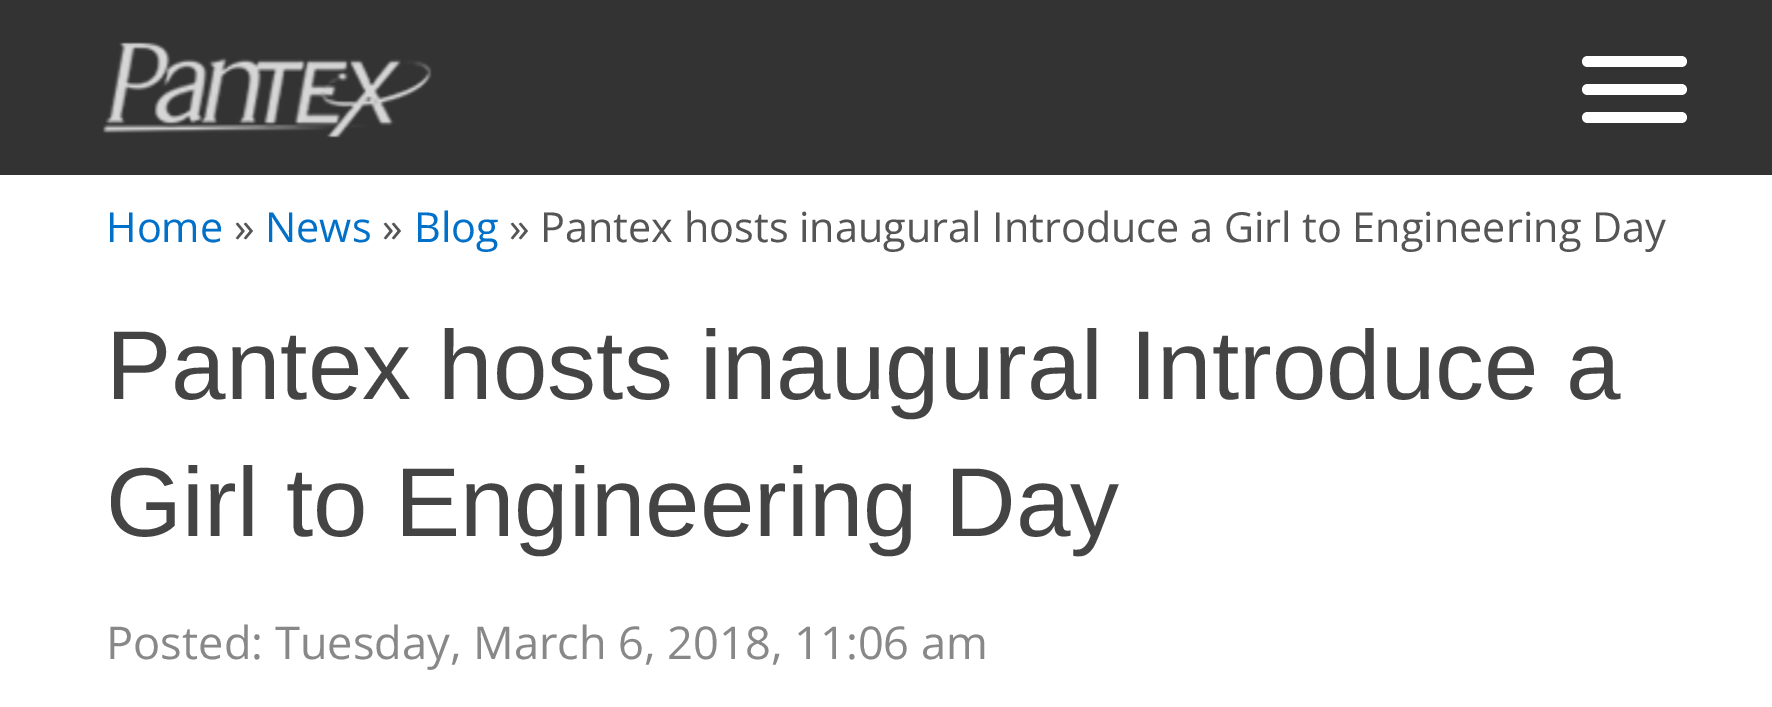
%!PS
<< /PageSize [1772 707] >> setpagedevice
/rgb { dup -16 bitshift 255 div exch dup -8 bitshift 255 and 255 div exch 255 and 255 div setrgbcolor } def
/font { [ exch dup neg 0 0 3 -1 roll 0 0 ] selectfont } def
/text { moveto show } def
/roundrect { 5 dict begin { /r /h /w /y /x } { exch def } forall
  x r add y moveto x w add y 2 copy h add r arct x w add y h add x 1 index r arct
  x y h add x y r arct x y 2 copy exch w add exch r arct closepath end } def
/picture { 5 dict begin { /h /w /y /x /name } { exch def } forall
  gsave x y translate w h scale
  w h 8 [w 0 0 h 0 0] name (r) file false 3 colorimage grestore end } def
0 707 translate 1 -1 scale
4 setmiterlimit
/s1 { /OpenSans-Regular 41.45 font 16#0070C9 rgb } def
/s2 { /OpenSans-Regular 41.45 font 16#555555 rgb } def
/s3 { /LiberationSans-Regular 98 font 16#444444 rgb } def
16#FFFFFF rgb
0 0 1772 707 rectfill
16#333333 rgb
0 0 1772 175 rectfill
(pic1.raw) 102 42 330 96 picture
16#FFFFFF rgb
1582 84 105 11 5.5 roundrect fill
1582 56 105 11 5.5 roundrect fill
1582 112 105 11 5.5 roundrect fill
s1
(Home) 106 242 text
s2
(») 234 242 text
s1
(News) 265 242 text
s2
(») 382 242 text
s1
(Blog) 414 242 text
16#555555 rgb
509 242 moveto -0.25 0 32 (» Pantex hosts inaugural Introduce a Girl to Engineering Day) widthshow
s3
(Pantex hosts inaugural Introduce a) 106 399 text
(Girl to Engineering Day) 106 536 text
/OpenSans-Regular 45.25 font
16#888888 rgb
106 659 moveto -0.25 0 32 (Posted: Tuesday, March 6, 2018, 11:06 am) widthshow
showpage
